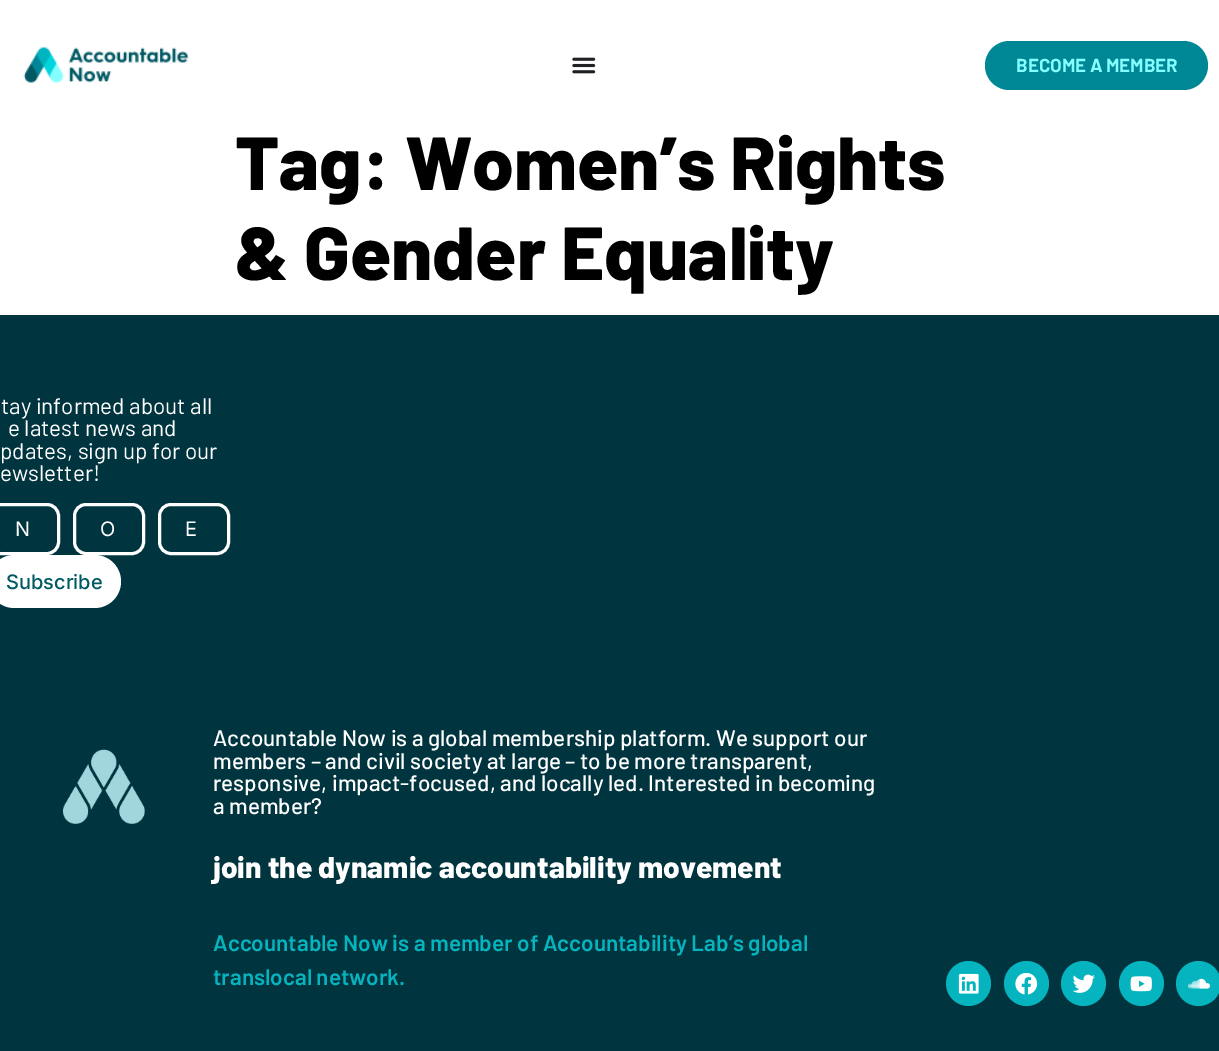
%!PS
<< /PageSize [1219 1051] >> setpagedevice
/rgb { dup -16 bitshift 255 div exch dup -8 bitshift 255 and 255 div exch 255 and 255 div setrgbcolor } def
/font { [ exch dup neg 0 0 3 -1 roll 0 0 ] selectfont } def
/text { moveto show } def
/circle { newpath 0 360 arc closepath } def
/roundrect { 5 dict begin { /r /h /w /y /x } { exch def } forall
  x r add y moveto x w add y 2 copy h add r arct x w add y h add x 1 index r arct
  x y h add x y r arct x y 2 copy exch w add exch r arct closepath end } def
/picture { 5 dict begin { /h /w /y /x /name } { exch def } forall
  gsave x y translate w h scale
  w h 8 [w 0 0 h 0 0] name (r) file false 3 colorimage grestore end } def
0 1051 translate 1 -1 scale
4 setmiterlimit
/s1 { /Barlow-Bold 18.75 font 16#85FEFF rgb } def
/s2 { /Barlow-ExtraBold 75 font 16#000000 rgb } def
/s3 { /Barlow-Regular 22.5 font 16#FFFFFF rgb } def
/s4 { /Inter-Regular 20 font 16#FFFFFF rgb } def
/s5 { /Inter-Medium 20 font 16#005A64 rgb } def
/s6 { /Barlow-Medium 22.5 font 16#FFFFFF rgb } def
/s7 { /Barlow-ExtraBold 30 font 16#FFFFFF rgb } def
/s8 { /Barlow-SemiBold 22.5 font 16#05B4BE rgb } def
16#FFFFFF rgb
0 0 1219 1051 rectfill
(pic1.raw) 23 47 166 36 picture
(pic2.raw) 572 57 24 17 picture
16#008796 rgb
985 41 223 49 24.5 roundrect fill
s1
(BECOME A MEMBER) 1016 72 text
s2
(Tag: Women’s Rights) 235 190 text
(& Gender Equality) 235 280 text
16#00353F rgb
0 315 1219 736 rectfill
s3
(tay informed about all) 1 414 text
(e latest news and) 8 436 text
(pdates, sign up for our) 0 459 text
(ewsletter!) 0 481 text
3 setlinewidth
-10.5 504.5 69 49 11.5 roundrect stroke
s4
(N) 15 536 text
74.5 504.5 69 49 11.5 roundrect stroke
(O) 100 536 text
159.5 504.5 69 49 11.5 roundrect stroke
(E) 185 536 text
-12 555 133 53 26.5 roundrect fill
s5
(Subscribe) 6 589 text
(pic3.raw) 62 749 83 75 picture
s6
(Accountable Now is a global membership platform. We support our) 213 746 text
(members – and civil society at large – to be more transparent,) 213 769 text
(responsive, impact-focused, and locally led. Interested in becoming) 213 791 text
(a member?) 213 814 text
s7
(join the dynamic accountability movement) 213 878 text
s8
(Accountable Now is a member of Accountability Lab’s global) 213 951 text
(translocal network.) 213 985 text
968.5 983.5 22.5 circle fill
(pic4.raw) 958 973 21 21 picture
1026.5 983.5 22.5 circle fill
(pic5.raw) 1015 973 23 22 picture
1083.5 983.5 22.5 circle fill
(pic6.raw) 1073 974 22 19 picture
1141.5 983.5 22.5 circle fill
(pic7.raw) 1130 976 22 16 picture
1198.5 983.5 22.5 circle fill
(pic8.raw) 1188 978 22 11 picture
showpage
